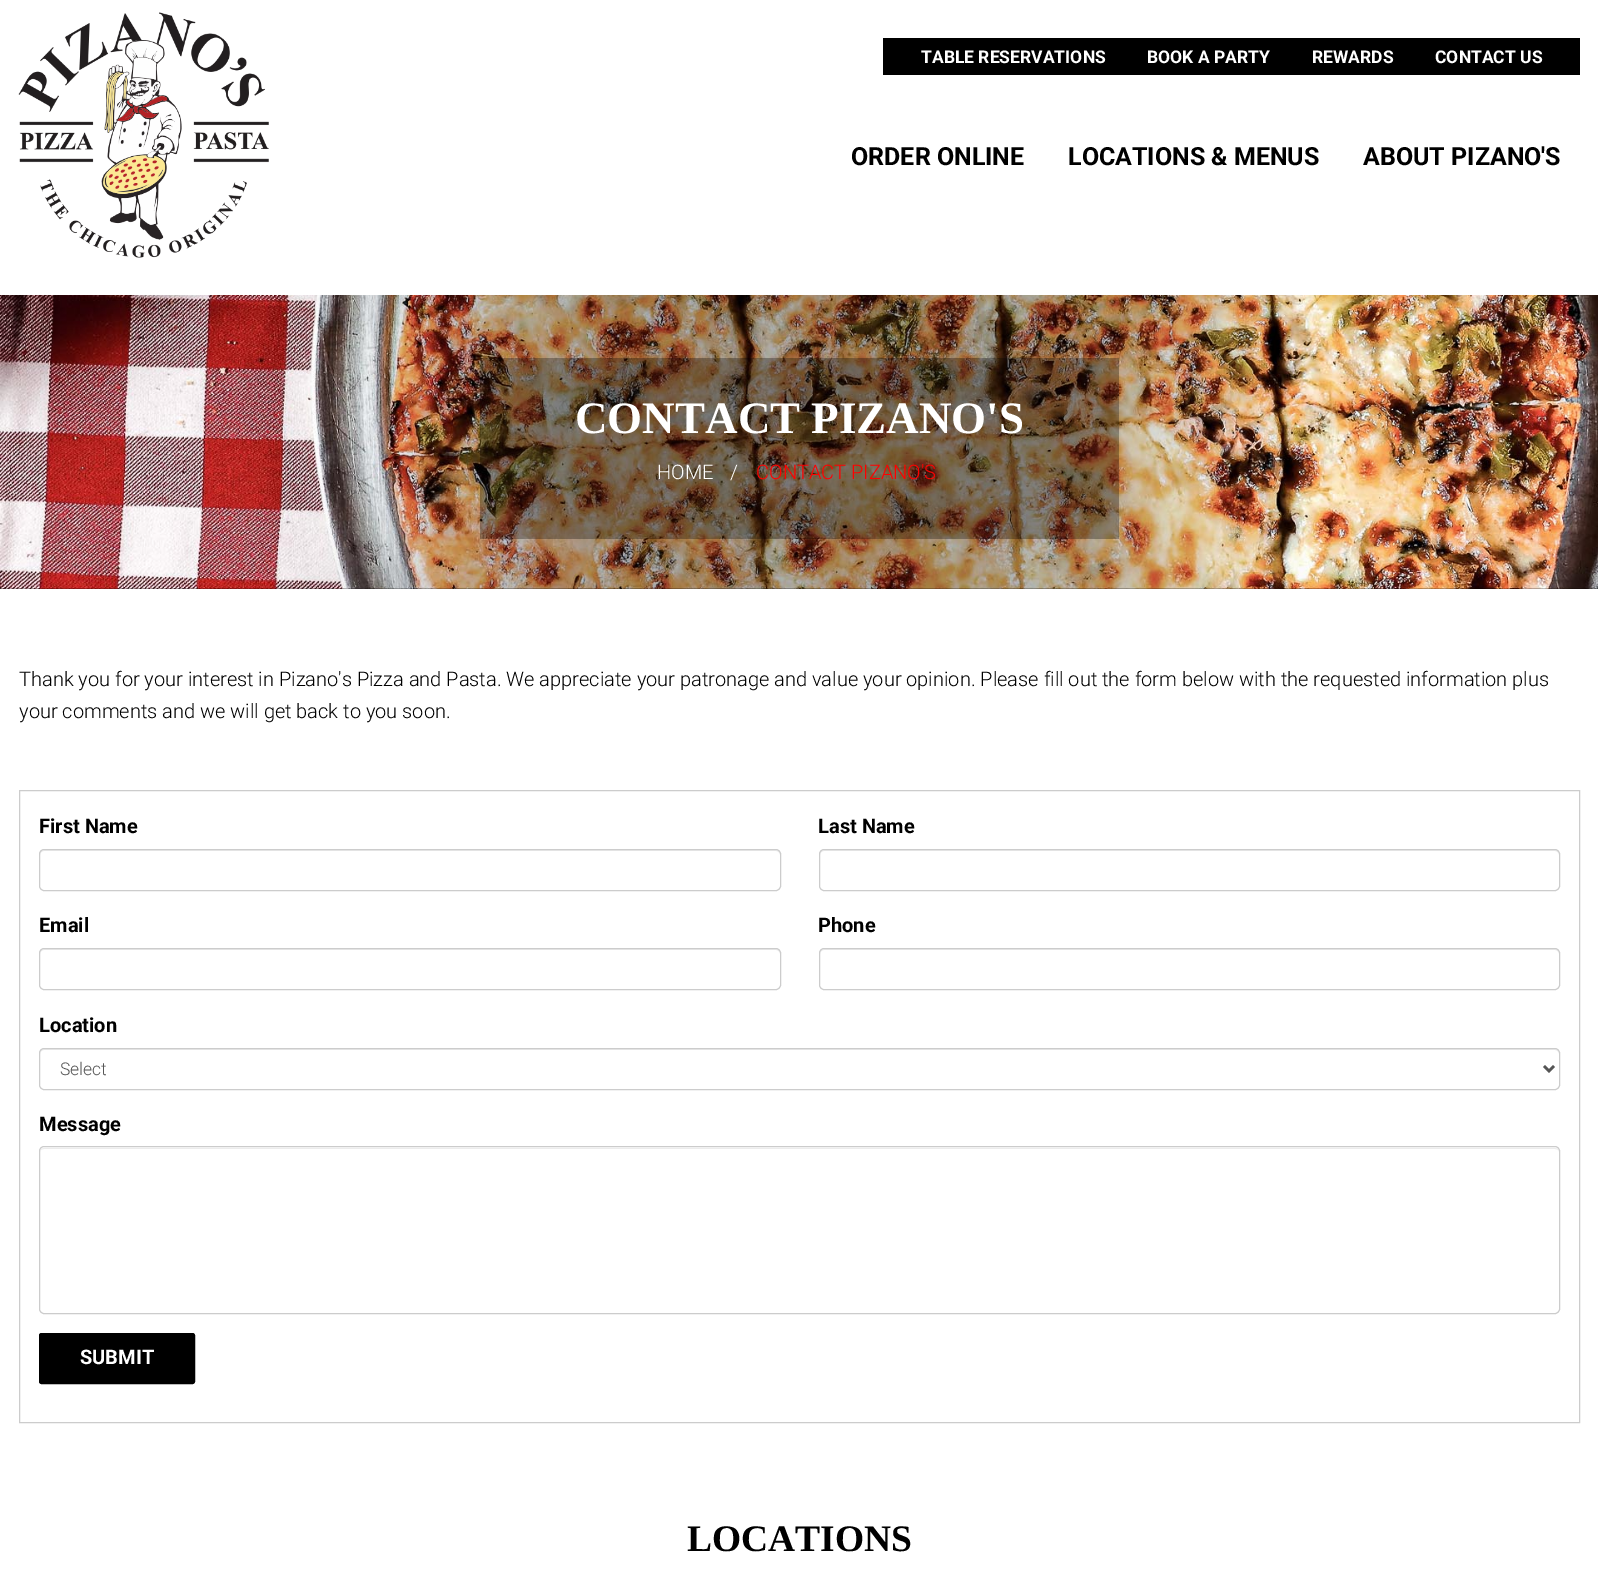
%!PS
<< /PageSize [1598 1594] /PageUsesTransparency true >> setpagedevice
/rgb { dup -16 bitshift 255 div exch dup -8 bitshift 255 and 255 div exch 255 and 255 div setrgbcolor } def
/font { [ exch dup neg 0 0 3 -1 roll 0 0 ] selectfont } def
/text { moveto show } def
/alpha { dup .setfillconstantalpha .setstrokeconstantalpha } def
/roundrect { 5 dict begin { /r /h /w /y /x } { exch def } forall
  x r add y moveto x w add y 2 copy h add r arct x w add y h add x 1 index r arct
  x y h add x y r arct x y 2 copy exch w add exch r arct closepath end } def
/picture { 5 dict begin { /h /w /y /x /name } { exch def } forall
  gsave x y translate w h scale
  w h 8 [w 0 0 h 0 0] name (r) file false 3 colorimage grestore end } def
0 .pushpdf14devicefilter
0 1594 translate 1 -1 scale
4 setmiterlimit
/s1 { /Roboto-Bold 17.5 font 16#FFFFFF rgb } def
/s2 { /Roboto-Bold 25 font 16#000000 rgb } def
/s3 { /LiberationSerif-Bold 45 font 16#FFFFFF rgb } def
/s4 { /Roboto-Light 20 font 16#FFFFFF rgb } def
/s5 { /Roboto-Light 20 font 16#FF0000 rgb } def
/s6 { /Roboto-Light 20 font 16#000000 rgb } def
/s7 { /Roboto-Bold 20 font 16#000000 rgb } def
/s8 { /Roboto-Light 17.5 font 16#555555 rgb } def
/s9 { /Roboto-Bold 20 font 16#FFFFFF rgb } def
/s10 { /LiberationSerif-Bold 37.5 font 16#000000 rgb } def
16#FFFFFF rgb
0 0 1598 1594 rectfill
(pic1.raw) 18 12 251 246 picture
16#000000 rgb
883 38 697 37 rectfill
s1
(TABLE RESERVATIONS) 921 63 text
(BOOK A PARTY) 1147 63 text
(REWARDS) 1312 63 text
(CONTACT US) 1435 63 text
s2
(ORDER ONLINE) 851 165 text
(LOCATIONS & MENUS) 1068 165 text
(ABOUT PIZANO'S) 1363 165 text
(pic2.raw) 0 295 1598 294 picture
0.3 alpha
480 358 639 181 rectfill
1 alpha
s3
(CONTACT PIZANO'S) 575 433 text
s4
(HOME) 657 479 text
(/) 730 479 text
s5
(CONTACT PIZANO'S) 756 479 text
s6
(Thank you for your interest in Pizano's Pizza and Pasta. We appreciate your patronage and value your opinion. Please fill out the form below with the requested information plus) 19 686 text
(your comments and we will get back to you soon.) 19 718 text
16#CCCCCC rgb
19.5 790.5 1560 632 rectstroke
s7
(First Name) 39 833 text
16#ECECEC rgb
44 851 moveto 776 851 lineto 778 851 780 853 780 855 curveto 780 852 779 850 776 850 curveto 44 850 lineto 41 851 lineto 40 852 lineto 40 855 lineto 40 853 42 851 44 851 curveto closepath fill
16#CCCCCC rgb
39.5 849.5 741 41 4.5 roundrect stroke
s7
(Last Name) 818 833 text
16#ECECEC rgb
824 851 moveto 1555 851 lineto 1557 851 1559 853 1559 855 curveto 1559 852 1558 850 1555 850 curveto 824 850 lineto 821 851 lineto 820 852 lineto 820 855 lineto 820 853 822 851 824 851 curveto closepath fill
16#CCCCCC rgb
819.5 849.5 740 41 4.5 roundrect stroke
s7
(Email) 39 932 text
16#ECECEC rgb
44 950 moveto 776 950 lineto 778 950 780 952 780 954 curveto 780 951 779 949 776 949 curveto 44 949 lineto 41 950 lineto 40 951 lineto 40 954 lineto 40 952 42 950 44 950 curveto closepath fill
16#CCCCCC rgb
39.5 948.5 741 41 4.5 roundrect stroke
s7
(Phone) 818 932 text
16#ECECEC rgb
824 950 moveto 1555 950 lineto 1557 950 1559 952 1559 954 curveto 1559 951 1558 949 1555 949 curveto 824 949 lineto 821 950 lineto 820 951 lineto 820 954 lineto 820 952 822 950 824 950 curveto closepath fill
16#CCCCCC rgb
819.5 948.5 740 41 4.5 roundrect stroke
s7
(Location) 39 1032 text
16#ECECEC rgb
44 1050 moveto 1555 1050 lineto 1557 1050 1559 1052 1559 1054 curveto 1559 1053 lineto 1559 1051 1557 1049 1555 1049 curveto 44 1049 lineto 42 1049 40 1051 40 1053 curveto 40 1054 lineto 40 1052 42 1050 44 1050 curveto closepath fill
16#CCCCCC rgb
39.5 1048.5 1520 41 4.5 roundrect stroke
16#555555 rgb
2.5 setlinewidth
1544 1066 moveto 1549 1071 lineto 1554 1066 lineto stroke
s8
(Select) 60 1075 text
s7
(Message) 39 1131 text
16#ECECEC rgb
44 1149 moveto 1555 1149 lineto 1557 1149 1559 1150 1559 1152 curveto 1559 1150 1557 1148 1555 1148 curveto 44 1148 lineto 42 1148 40 1150 40 1152 curveto 40 1150 42 1149 44 1149 curveto closepath fill
16#CCCCCC rgb
1 setlinewidth
39.5 1146.5 1520 167 4.5 roundrect stroke
16#000000 rgb
41 1335 152 47 0.5 roundrect gsave fill grestore
4 setlinewidth
stroke
s9
(SUBMIT) 80 1364 text
s10
(LOCATIONS) 687 1551 text
.poppdf14devicefilter showpage
